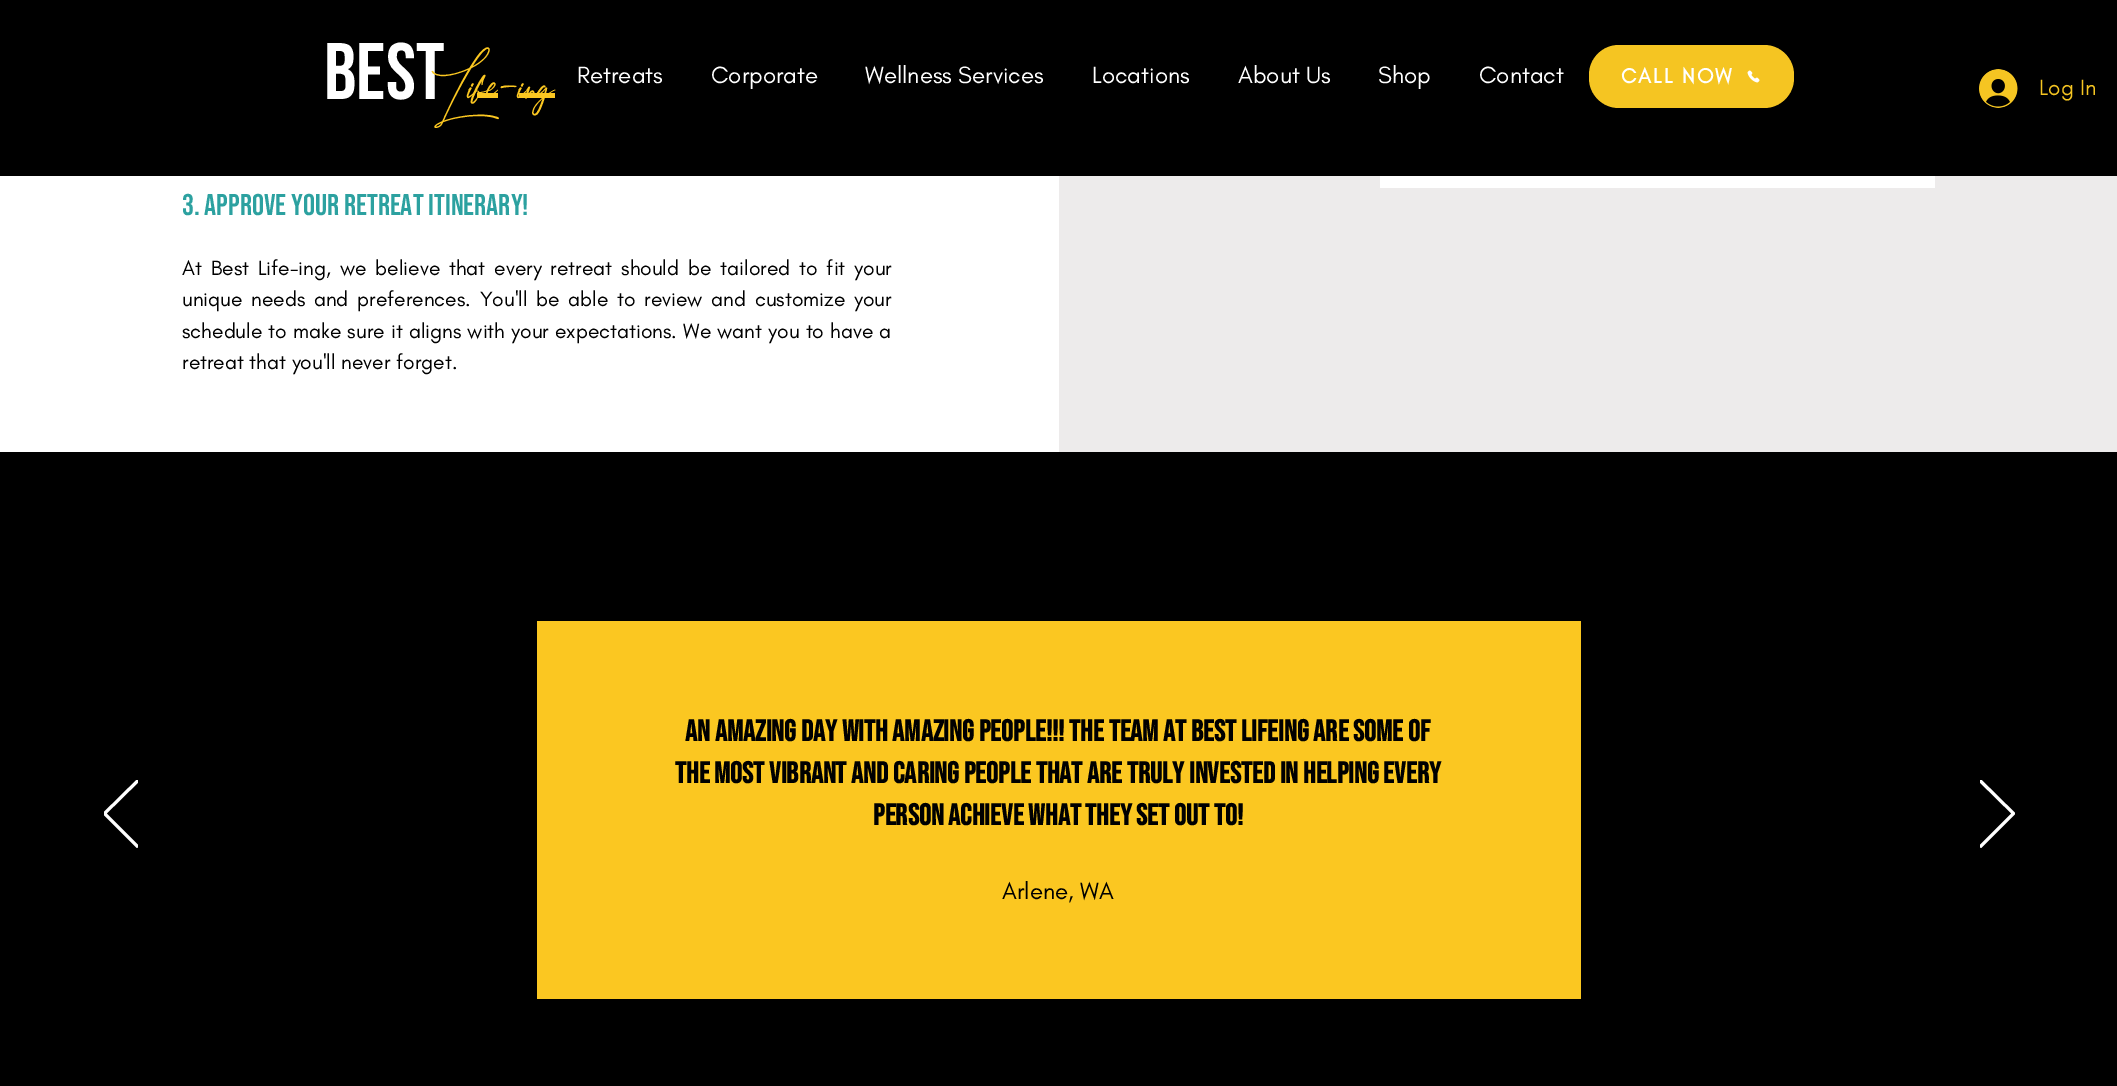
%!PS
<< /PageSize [2117 1086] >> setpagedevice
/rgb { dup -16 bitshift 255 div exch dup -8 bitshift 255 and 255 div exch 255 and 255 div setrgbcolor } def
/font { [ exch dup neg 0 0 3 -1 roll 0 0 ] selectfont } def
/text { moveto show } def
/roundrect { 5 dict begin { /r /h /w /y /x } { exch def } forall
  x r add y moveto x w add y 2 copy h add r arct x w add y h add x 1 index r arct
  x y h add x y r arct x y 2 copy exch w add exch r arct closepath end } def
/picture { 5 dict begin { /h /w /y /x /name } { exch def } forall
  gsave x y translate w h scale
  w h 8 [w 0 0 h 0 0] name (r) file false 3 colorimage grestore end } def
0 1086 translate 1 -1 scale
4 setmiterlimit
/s1 { /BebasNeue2-Bold 80 font 16#FFFFFF rgb } def
/s2 { /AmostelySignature-Regular 54 font 16#FBC721 rgb } def
/s3 { /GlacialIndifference-Regular 24 font 16#FFFFFF rgb } def
/s4 { /GlacialIndifference-Regular 22.5 font 16#F5C522 rgb } def
/s5 { /BebasNeue-Regular 30 font 16#2CA1A0 rgb } def
/s6 { /GlacialIndifference-Regular 21 font 16#000000 rgb } def
/s7 { /BebasNeue-Bold 30 font 16#000000 rgb } def
/s8 { /GlacialIndifference-Regular 24 font 16#000000 rgb } def
16#FFFFFF rgb
0 0 2117 1086 rectfill
16#000000 rgb
0 0 2117 176 rectfill
s1
(Best) 324 99 text
s2
(Li) 431 90 text
477 93 21 5 rectfill
(fe-) 476 90 text
519 93 36 5 rectfill
(ing) 519 90 text
s3
(Retreats) 577 83 text
(Corporate) 711 83 text
(Wellness Services) 865 83 text
(Locations) 1092 83 text
(About Us) 1238 83 text
(Shop) 1378 83 text
(Contact) 1479 83 text
16#F5C522 rgb
1589 45 205 63 30 roundrect fill
/GlacialIndifference-Bold 21 font
16#FFFFFF rgb
1621 83 moveto 2 0 (CALL NOW) ashow
(pic1.raw) 1747 70 13 13 picture
(pic2.raw) 1979 69 39 39 picture
s4
(Log In) 2039 95 text
s5
(3. APPROVE YOUR RETREAT ITINERARY!) 182 215 text
/GlacialIndifference-Regular 21 font
16#000000 rgb
182 275 moveto 3.25 0 32 (At Best Life-ing, we believe that every retreat should be tailored to fit your) widthshow
182 306 moveto 3.1 0 32 (unique needs and preferences. You'll be able to review and customize your) widthshow
182 338 moveto 0.5 0 32 (schedule to make sure it aligns with your expectations. We want you to have a) widthshow
(retreat that you'll never forget.) 182 369 text
16#EDEBEB rgb
1059 176 1058 276 rectfill
16#FFFFFF rgb
1380 176 555 12 rectfill
16#000000 rgb
0 452 2117 634 rectfill
gsave
104 780 34 68 rectclip
16#FFFFFF rgb
1.6 setlinewidth
137 847 moveto 103.5 813.5 lineto 137 780.5 lineto 138 781.5 lineto 105.5 813.5 lineto 138 846 lineto closepath stroke
grestore
16#FBC721 rgb
537 621 1044 378 rectfill
s7
(An amazing day with amazing people!!! The team at best Lifeing are some of) 685 741 text
(the most vibrant and caring people that are truly invested in helping every) 675 783 text
(person achieve what they set out to!) 873 825 text
s8
(Arlene, WA) 1002 899 text
gsave
1980 780 35 68 rectclip
16#FFFFFF rgb
1.6 setlinewidth
1981 847 moveto 2014.5 813.5 lineto 1981 780.5 lineto 1980 781.5 lineto 2012.5 813.5 lineto 1980 846 lineto closepath stroke
grestore
showpage
